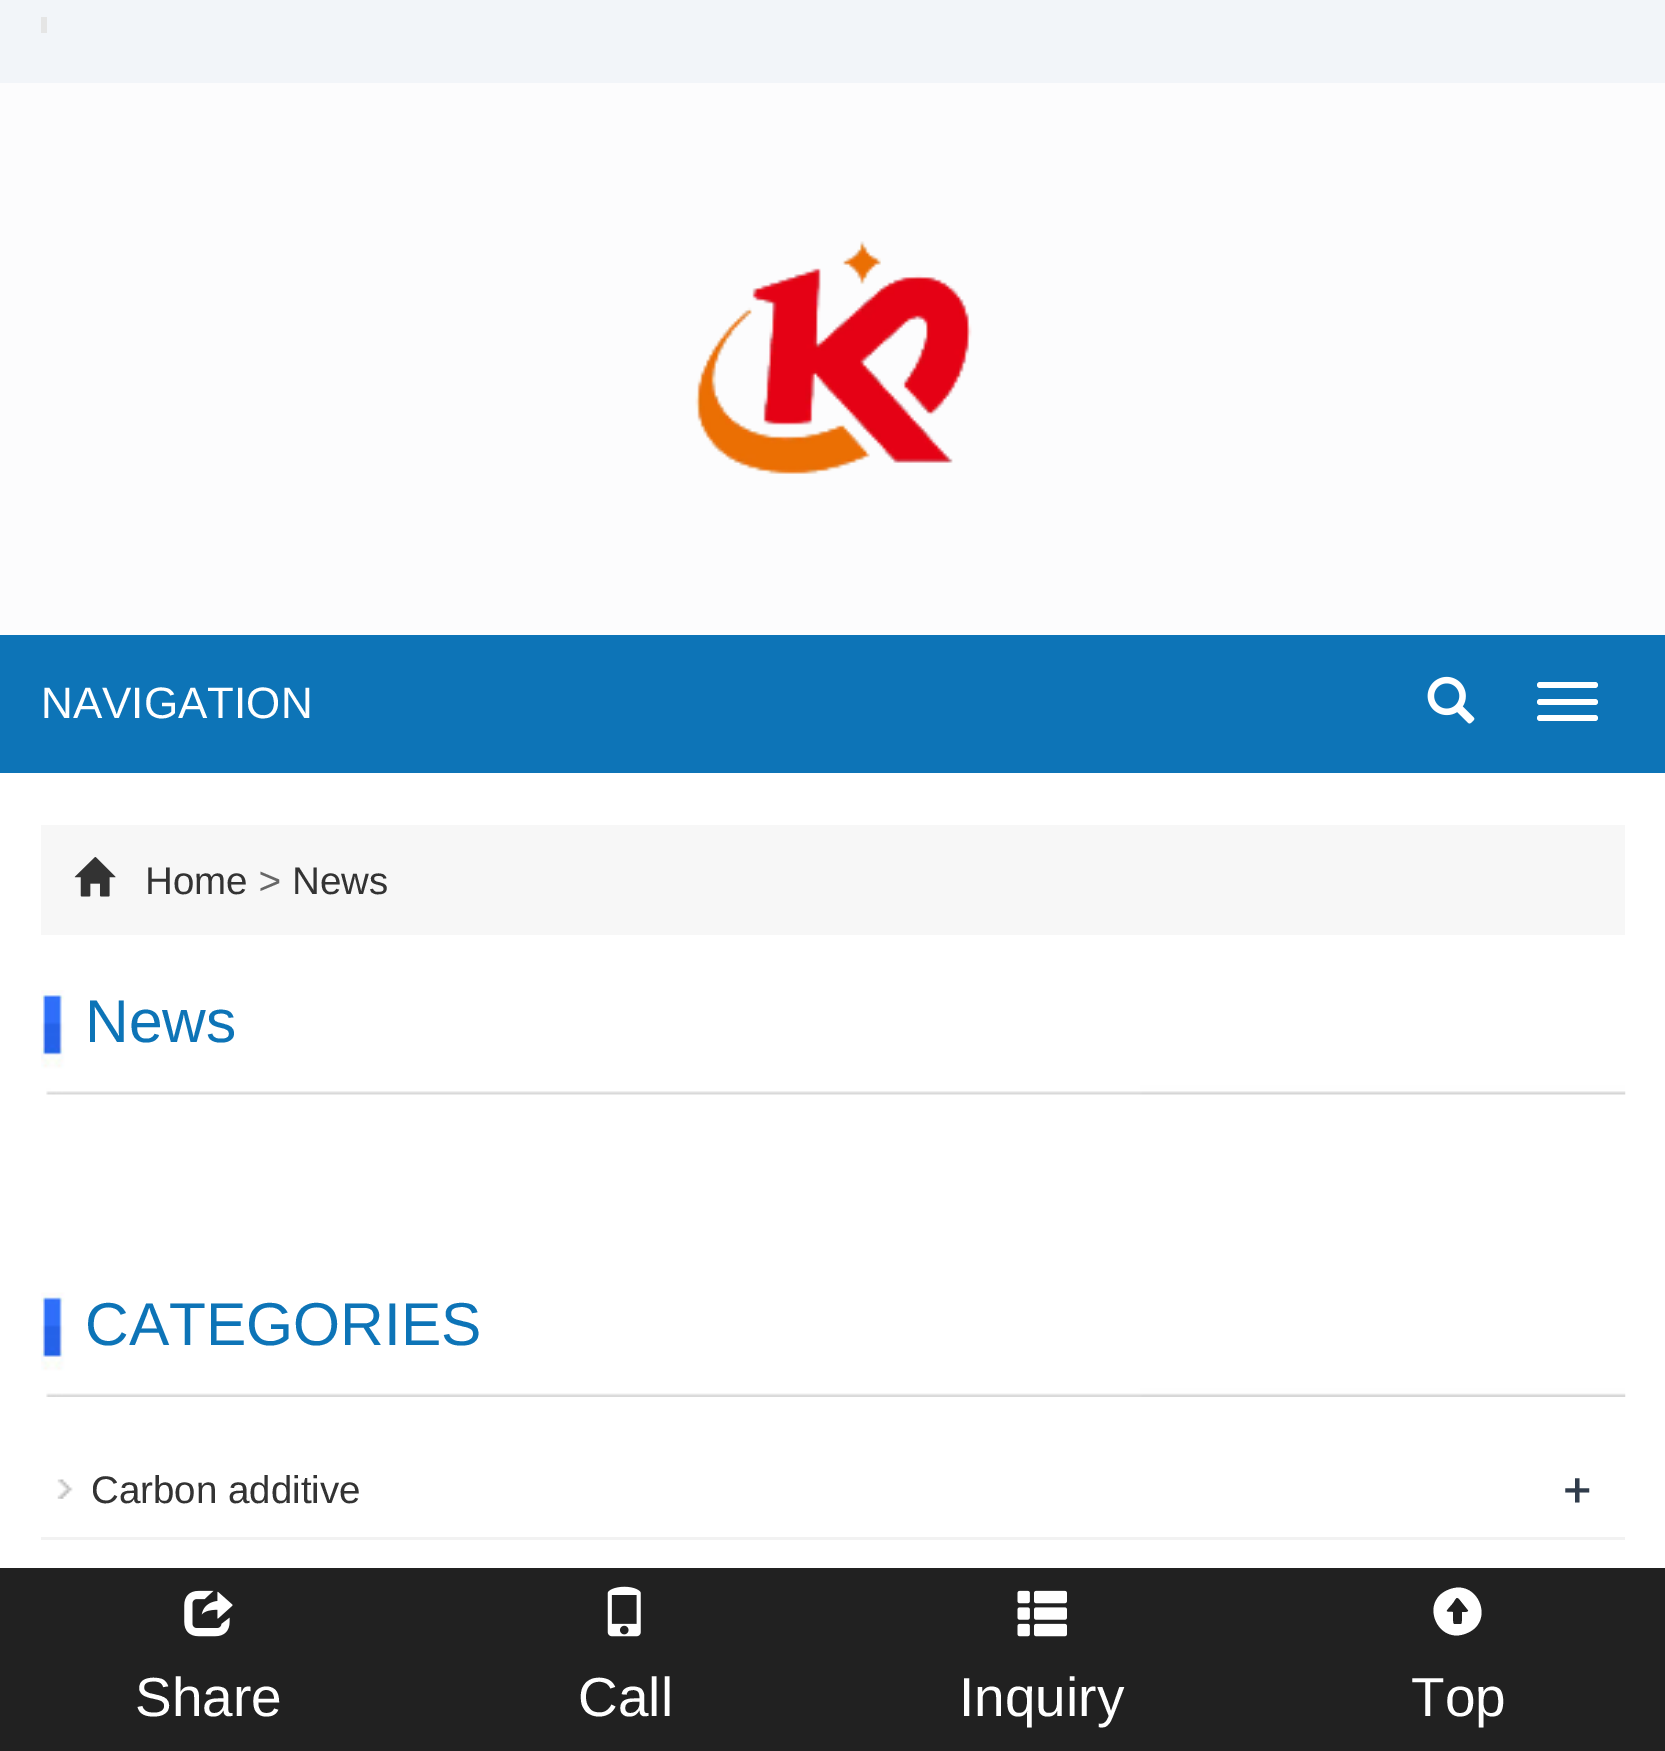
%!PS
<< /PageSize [1665 1751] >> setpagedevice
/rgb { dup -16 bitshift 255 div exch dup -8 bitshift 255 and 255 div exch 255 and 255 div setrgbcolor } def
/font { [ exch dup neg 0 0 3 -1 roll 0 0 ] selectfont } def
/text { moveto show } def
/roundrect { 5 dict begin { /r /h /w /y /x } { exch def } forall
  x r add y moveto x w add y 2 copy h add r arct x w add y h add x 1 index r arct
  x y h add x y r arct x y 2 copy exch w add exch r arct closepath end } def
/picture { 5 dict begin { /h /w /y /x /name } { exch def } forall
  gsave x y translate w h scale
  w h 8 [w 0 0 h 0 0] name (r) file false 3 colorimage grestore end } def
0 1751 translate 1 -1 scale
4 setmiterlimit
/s1 { /LiberationSans-Regular 44 font 16#FFFFFF rgb } def
/s2 { /LiberationSans-Regular 38.5 font 16#333333 rgb } def
/s3 { /LiberationSans-Italic 38.5 font 16#666666 rgb } def
/s4 { /LiberationSans-Regular 60.5 font 16#0D74B7 rgb } def
/s5 { /OpenSans-SemiBold 50 font 16#303C4B rgb } def
/s6 { /LiberationSans-Regular 55 font 16#FFFFFF rgb } def
16#FFFFFF rgb
0 0 1665 1751 rectfill
16#FCFCFD rgb
0 83 1665 552 rectfill
16#F2F5F9 rgb
0 0 1665 83 rectfill
16#E5E5E5 rgb
41 17 6 16 rectfill
(pic1.raw) 695 241 277 233 picture
16#0D74B7 rgb
0 635 1665 138 rectfill
s1
(NAVIGATION) 41 718 text
(pic2.raw) 1427 676 48 48 picture
1537 682 61 6 3 roundrect fill
1537 699 61 6 3 roundrect fill
1537 715 61 6 3 roundrect fill
16#F7F7F7 rgb
41 825 1584 110 rectfill
(pic3.raw) 74 857 42 40 picture
s2
(Home) 145 894 text
s3
(>) 258 894 text
s2
(News) 292 894 text
(pic4.raw) 41 990 1585 105 picture
s4
(News) 85 1042 text
(pic5.raw) 41 1292 1585 105 picture
(CATEGORIES) 85 1345 text
(pic6.raw) 57 1479 16 20 picture
16#F2F2F2 rgb
41 1537 1584 3 rectfill
s2
(Carbon additive) 91 1503 text
s5
(+) 1563 1508 text
16#212121 rgb
0 1568 1665 183 rectfill
(pic7.raw) 184 1590 49 47 picture
s6
(Share) 135 1716 text
(pic8.raw) 607 1586 34 51 picture
(Call) 578 1716 text
(pic9.raw) 1017 1590 50 47 picture
(Inquiry) 959 1716 text
1448 1590 moveto 1477 1577 1496 1621 1467 1633 curveto 1438 1646 1419 1602 1448 1590 curveto closepath 1468 1610 moveto 1460 1600 lineto 1456 1595 1456 1599 1452 1604 curveto 1445 1612 1444 1612 1453 1612 curveto 1453 1621 lineto 1453 1625 1454 1624 1458 1624 curveto 1461 1624 1462 1625 1462 1621 curveto 1462 1612 lineto 1462 1612 1470 1613 1468 1610 curveto closepath fill
(Top) 1411 1716 text
showpage
